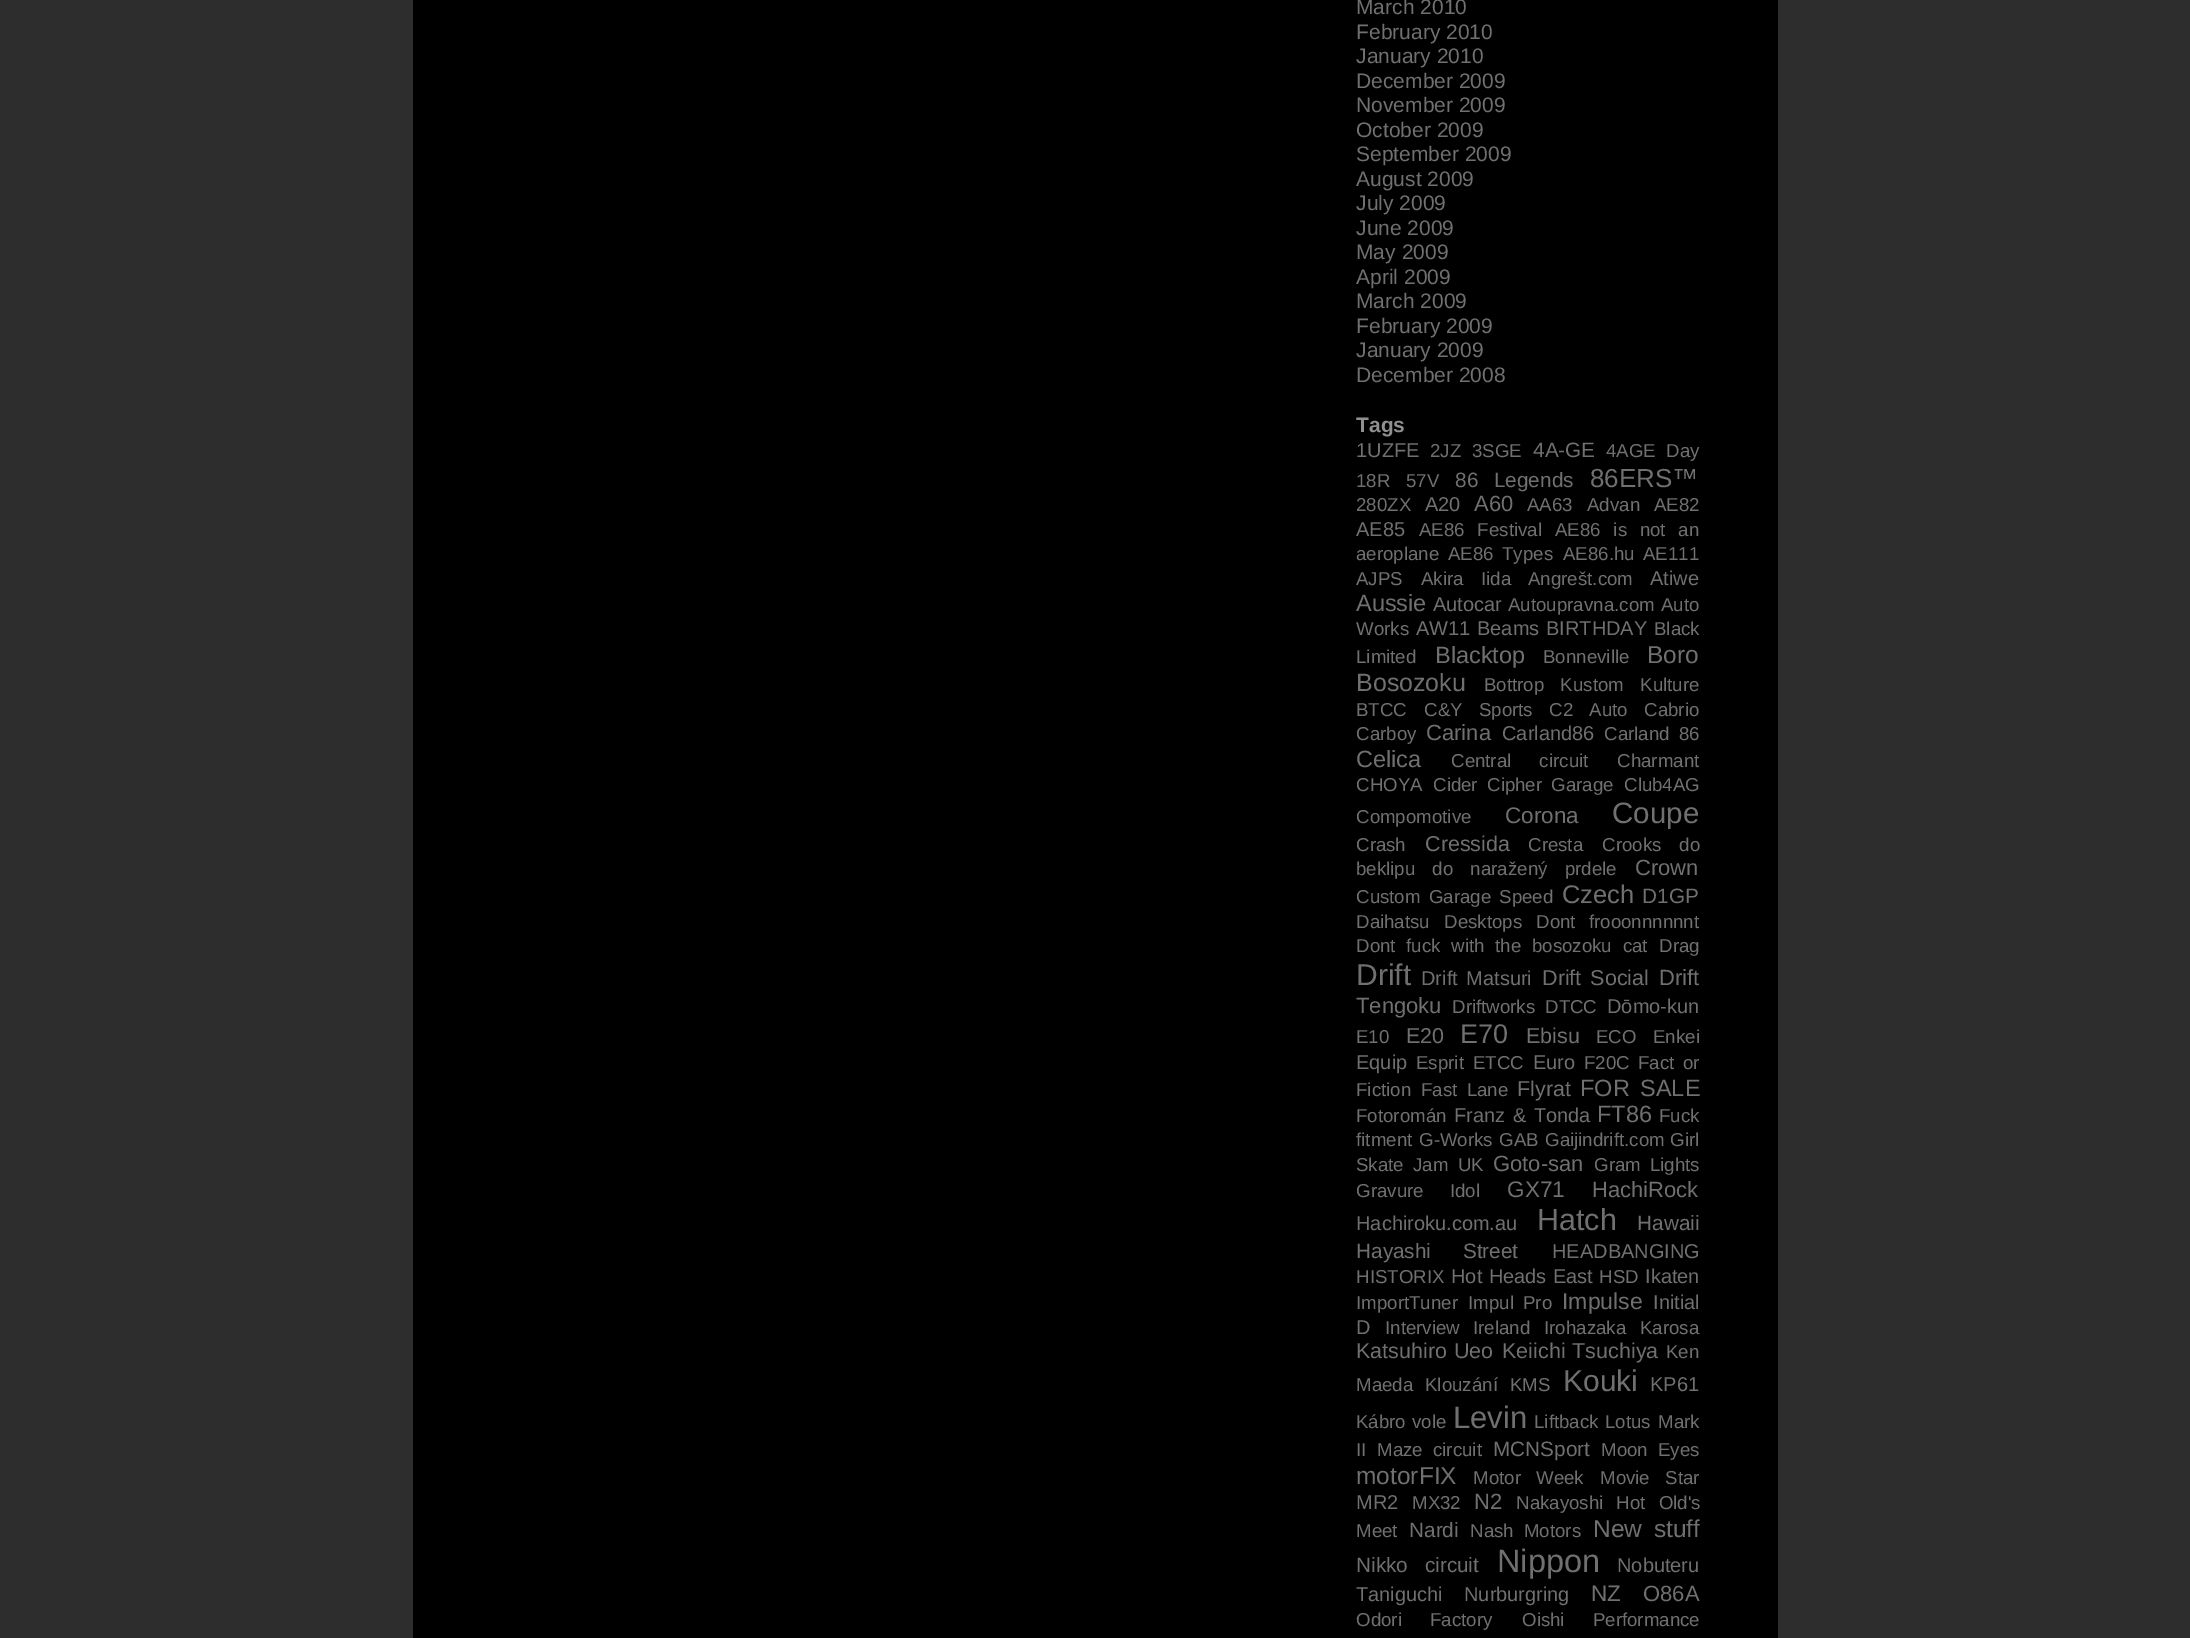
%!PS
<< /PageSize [2190 1638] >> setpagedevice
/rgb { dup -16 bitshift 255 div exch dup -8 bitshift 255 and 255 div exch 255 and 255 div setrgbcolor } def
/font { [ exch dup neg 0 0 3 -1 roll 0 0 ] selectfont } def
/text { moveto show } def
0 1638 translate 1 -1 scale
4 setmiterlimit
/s1 { /LiberationSans-Regular 21 font 16#707070 rgb } def
/s2 { /LiberationSans-Bold 21 font 16#909090 rgb } def
/s3 { /LiberationSans-Regular 20 font 16#707070 rgb } def
/s4 { /LiberationSans-Regular 18.7 font 16#707070 rgb } def
/s5 { /LiberationSans-Regular 20.75 font 16#707070 rgb } def
/s6 { /LiberationSans-Regular 26 font 16#707070 rgb } def
/s7 { /LiberationSans-Regular 22 font 16#707070 rgb } def
/s8 { /LiberationSans-Regular 23.5 font 16#707070 rgb } def
/s9 { /LiberationSans-Regular 24.5 font 16#707070 rgb } def
/s10 { /LiberationSans-Regular 25 font 16#707070 rgb } def
/s11 { /LiberationSans-Regular 22.5 font 16#707070 rgb } def
/s12 { /LiberationSans-Regular 29.5 font 16#707070 rgb } def
/s13 { /LiberationSans-Regular 21.5 font 16#707070 rgb } def
/s14 { /LiberationSans-Regular 25.5 font 16#707070 rgb } def
/s15 { /LiberationSans-Regular 30 font 16#707070 rgb } def
/s16 { /LiberationSans-Regular 27 font 16#707070 rgb } def
/s17 { /LiberationSans-Regular 30.5 font 16#707070 rgb } def
/s18 { /LiberationSans-Regular 23 font 16#707070 rgb } def
/s19 { /LiberationSans-Regular 31 font 16#707070 rgb } def
/s20 { /LiberationSans-Regular 32.5 font 16#707070 rgb } def
16#2D2D2D rgb
0 0 2190 1638 rectfill
16#000000 rgb
413 0 1365 1638 rectfill
s1
(March 2010) 1356 14 text
(February 2010) 1356 39 text
(January 2010) 1356 63 text
(December 2009) 1356 88 text
(November 2009) 1356 112 text
(October 2009) 1356 137 text
(September 2009) 1356 161 text
(August 2009) 1356 186 text
(July 2009) 1356 210 text
(June 2009) 1356 235 text
(May 2009) 1356 259 text
(April 2009) 1356 284 text
(March 2009) 1356 308 text
(February 2009) 1356 333 text
(January 2009) 1356 357 text
(December 2008) 1356 382 text
s2
(Tags) 1356 432 text
s3
(1UZFE) 1356 457 text
s4
(2JZ) 1430 457 text
(3SGE) 1472 457 text
s5
(4A-GE) 1533 457 text
/LiberationSans-Regular 18.7 font
1606 457 moveto 5 0 32 (4AGE Day) widthshow
(18R) 1356 487 text
(57V) 1406 487 text
/LiberationSans-Regular 20.75 font
1455 487 moveto 10 0 32 (86 Legends) widthshow
s6
(86ERS™) 1590 487 text
s4
(280ZX) 1356 511 text
s3
(A20) 1425 511 text
s7
(A60) 1474 511 text
s4
(AA63) 1527 511 text
(Advan) 1587 511 text
(AE82) 1654 511 text
s3
(AE85) 1356 536 text
/LiberationSans-Regular 18.7 font
1419 536 moveto 7.5 0 32 (AE86 Festival) widthshow
1555 536 moveto 7.5 0 32 (AE86 is not an) widthshow
(aeroplane) 1356 560 text
1448 560 moveto 3 0 32 (AE86 Types) widthshow
(AE86.hu) 1563 560 text
(AE111) 1643 560 text
(AJPS) 1356 585 text
1421 585 moveto 12 0 32 (Akira Iida) widthshow
(Angrešt.com) 1528 585 text
s3
(Atiwe) 1650 585 text
s8
(Aussie) 1356 611 text
s3
(Autocar) 1433 611 text
s4
(Autoupravna.com) 1508 611 text
(Auto) 1661 611 text
(Works) 1356 635 text
s3
(AW11) 1416 635 text
(Beams) 1477 635 text
(BIRTHDAY) 1546 635 text
s4
(Black) 1654 635 text
(Limited) 1356 663 text
s8
(Blacktop) 1435 663 text
s4
(Bonneville) 1543 663 text
s9
(Boro) 1647 663 text
s10
(Bosozoku) 1356 691 text
/LiberationSans-Regular 18.7 font
1484 691 moveto 11 0 32 (Bottrop Kustom Kulture) widthshow
(BTCC) 1356 716 text
1424 716 moveto 11 0 32 (C&Y Sports) widthshow
1549 716 moveto 11 0 32 (C2 Auto) widthshow
(Cabrio) 1644 716 text
(Carboy) 1356 740 text
s7
(Carina) 1426 740 text
s3
(Carland86) 1502 740 text
/LiberationSans-Regular 18.7 font
1604 740 moveto 4 0 32 (Carland 86) widthshow
s8
(Celica) 1356 767 text
/LiberationSans-Regular 18.7 font
1451 767 moveto 23 0 32 (Central circuit) widthshow
(Charmant) 1617 767 text
(CHOYA) 1356 791 text
(Cider) 1433 791 text
1487 791 moveto 4 0 32 (Cipher Garage) widthshow
(Club4AG) 1624 791 text
(Compomotive) 1356 823 text
s11
(Corona) 1505 823 text
s12
(Coupe) 1612 823 text
s4
(Crash) 1356 851 text
s13
(Cressida) 1425 851 text
s4
(Cresta) 1528 851 text
1602 851 moveto 13 0 32 (Crooks do) widthshow
1356 875 moveto 12 0 32 (beklipu do naražený prdele) widthshow
s7
(Crown) 1635 875 text
/LiberationSans-Regular 18.7 font
1356 903 moveto 3 0 32 (Custom Garage Speed) widthshow
s14
(Czech) 1562 903 text
s5
(D1GP) 1642 903 text
s4
(Daihatsu) 1356 928 text
(Desktops) 1444 928 text
1536 928 moveto 8 0 32 (Dont frooonnnnnnt) widthshow
1356 952 moveto 5.5 0 32 (Dont fuck with the bosozoku cat) widthshow
(Drag) 1659 952 text
s15
(Drift) 1356 985 text
/LiberationSans-Regular 20 font
1421 985 moveto 3 0 32 (Drift Matsuri) widthshow
/LiberationSans-Regular 21.5 font
1542 985 moveto 3 0 32 (Drift Social) widthshow
s7
(Drift) 1659 985 text
(Tengoku) 1356 1013 text
s4
(Driftworks) 1452 1013 text
(DTCC) 1545 1013 text
s3
(Dōmo-kun) 1607 1013 text
s4
(E10) 1356 1043 text
s13
(E20) 1406 1043 text
s16
(E70) 1460 1043 text
s13
(Ebisu) 1526 1043 text
s4
(ECO) 1596 1043 text
(Enkei) 1653 1043 text
s3
(Equip) 1356 1069 text
s4
(Esprit) 1416 1069 text
(ETCC) 1473 1069 text
s3
(Euro) 1533 1069 text
s4
(F20C) 1584 1069 text
1638 1069 moveto 3 0 32 (Fact or) widthshow
(Fiction) 1356 1096 text
1421 1096 moveto 4 0 32 (Fast Lane) widthshow
s13
(Flyrat) 1517 1096 text
/LiberationSans-Regular 23.5 font
1580 1096 moveto 4 0 32 (FOR SALE) widthshow
s4
(Fotoromán) 1356 1122 text
/LiberationSans-Regular 20 font
1454 1122 moveto 2 0 32 (Franz & Tonda) widthshow
s8
(FT86) 1597 1122 text
s4
(Fuck) 1659 1122 text
(fitment) 1356 1146 text
(G-Works) 1419 1146 text
(GAB) 1499 1146 text
(Gaijindrift.com) 1545 1146 text
(Girl) 1670 1146 text
1356 1171 moveto 4 0 32 (Skate Jam UK) widthshow
s7
(Goto-san) 1493 1171 text
/LiberationSans-Regular 18.7 font
1594 1171 moveto 4 0 32 (Gram Lights) widthshow
1356 1197 moveto 21 0 32 (Gravure Idol) widthshow
s11
(GX71) 1507 1197 text
s7
(HachiRock) 1592 1197 text
s3
(Hachiroku.com.au) 1356 1230 text
s17
(Hatch) 1537 1230 text
s5
(Hawaii) 1637 1230 text
1356 1258 moveto 26 0 32 (Hayashi Street) widthshow
s3
(HEADBANGING) 1552 1258 text
s4
(HISTORIX) 1356 1283 text
/LiberationSans-Regular 20 font
1451 1283 moveto 1 0 32 (Hot Heads East) widthshow
s4
(HSD) 1599 1283 text
s3
(Ikaten) 1645 1283 text
s4
(ImportTuner) 1356 1309 text
1468 1309 moveto 4 0 32 (Impul Pro) widthshow
s18
(Impulse) 1562 1309 text
s3
(Initial) 1653 1309 text
(D) 1356 1334 text
s4
(Interview) 1385 1334 text
(Ireland) 1473 1334 text
(Irohazaka) 1544 1334 text
(Karosa) 1640 1334 text
/LiberationSans-Regular 21.5 font
1356 1358 moveto 1 0 32 (Katsuhiro Ueo) widthshow
1502 1358 moveto 1 0 32 (Keiichi Tsuchiya) widthshow
s4
(Ken) 1666 1358 text
(Maeda) 1356 1391 text
(Klouzání) 1425 1391 text
(KMS) 1510 1391 text
s15
(Kouki) 1563 1391 text
s3
(KP61) 1650 1391 text
/LiberationSans-Regular 18.7 font
1356 1428 moveto 1 0 32 (Kábro vole) widthshow
s19
(Levin) 1453 1428 text
s4
(Liftback) 1534 1428 text
(Lotus) 1605 1428 text
(Mark) 1658 1428 text
(II) 1356 1456 text
1377 1456 moveto 5 0 32 (Maze circuit) widthshow
s5
(MCNSport) 1493 1456 text
/LiberationSans-Regular 18.7 font
1601 1456 moveto 5 0 32 (Moon Eyes) widthshow
s9
(motorFIX) 1356 1484 text
/LiberationSans-Regular 18.7 font
1473 1484 moveto 10 0 32 (Motor Week) widthshow
1600 1484 moveto 10 0 32 (Movie Star) widthshow
s3
(MR2) 1356 1509 text
s4
(MX32) 1412 1509 text
s7
(N2) 1474 1509 text
/LiberationSans-Regular 18.7 font
1516 1509 moveto 8 0 32 (Nakayoshi Hot Old's) widthshow
(Meet) 1356 1537 text
s5
(Nardi) 1409 1537 text
/LiberationSans-Regular 18.7 font
1470 1537 moveto 5 0 32 (Nash Motors) widthshow
/LiberationSans-Regular 24.5 font
1593 1537 moveto 5 0 32 (New stuff) widthshow
/LiberationSans-Regular 20.75 font
1356 1572 moveto 11 0 32 (Nikko circuit) widthshow
s20
(Nippon) 1497 1572 text
s3
(Nobuteru) 1617 1572 text
(Taniguchi) 1356 1601 text
(Nurburgring) 1464 1601 text
s11
(NZ) 1591 1601 text
s7
(O86A) 1643 1601 text
/LiberationSans-Regular 18.7 font
1356 1626 moveto 23 0 32 (Odori Factory) widthshow
1522 1626 moveto 23 0 32 (Oishi Performance) widthshow
showpage
